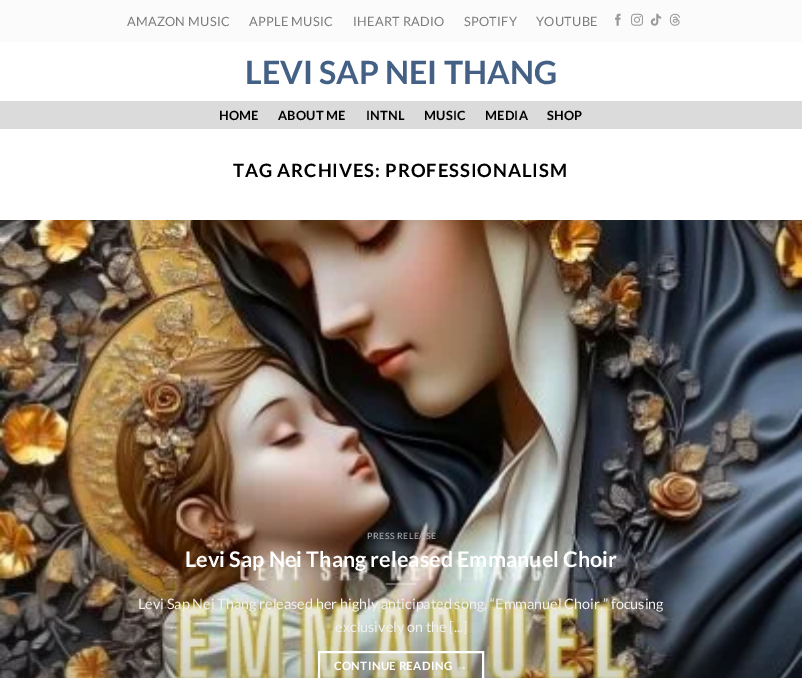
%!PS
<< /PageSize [802 678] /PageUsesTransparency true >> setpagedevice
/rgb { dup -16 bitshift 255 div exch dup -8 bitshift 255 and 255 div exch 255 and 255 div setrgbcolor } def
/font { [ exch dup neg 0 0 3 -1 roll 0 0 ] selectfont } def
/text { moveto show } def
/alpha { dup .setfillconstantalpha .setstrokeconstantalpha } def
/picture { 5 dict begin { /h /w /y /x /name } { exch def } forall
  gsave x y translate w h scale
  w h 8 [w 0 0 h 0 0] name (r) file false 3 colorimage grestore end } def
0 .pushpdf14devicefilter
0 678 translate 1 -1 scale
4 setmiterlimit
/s1 { /Lato-Bold 32 font 16#446084 rgb } def
/s2 { /Lato-Bold 21.6 font 16#FFFFFF rgb } def
/s3 { /Lato-Regular 14.4 font 16#F1F1F1 rgb } def
16#FFFFFF rgb
0 0 802 678 rectfill
16#FBFBFB rgb
0 0 802 42 rectfill
/Lato-Regular 12.75 font
16#7C7C7C rgb
127 26 moveto 0.25 0 (AMAZON MUSIC) ashow
249 26 moveto 0.25 0 (APPLE MUSIC) ashow
353 26 moveto 0.25 0 (IHEART RADIO) ashow
464 26 moveto 0.25 0 (SPOTIFY) ashow
536 26 moveto 0.25 0 (YOUTUBE) ashow
(pic1.raw) 615 13 6 13 picture
(pic2.raw) 631 13 12 13 picture
(pic3.raw) 650 13 12 13 picture
(pic4.raw) 669 13 11 13 picture
s1
(LEVI SAP NEI THANG) 245 84 text
16#DBDBDB rgb
0 101 802 28 rectfill
/Lato-Bold 12.75 font
16#000000 rgb
219 120 moveto 0.25 0 (HOME) ashow
278 120 moveto 0.25 0 (ABOUT ME) ashow
366 120 moveto 0.25 0 (INTNL) ashow
424 120 moveto 0.25 0 (MUSIC) ashow
485 120 moveto 0.25 0 (MEDIA) ashow
547 120 moveto 0.25 0 (SHOP) ashow
/Lato-Bold 18.4 font
233 177 moveto 0.9 0 (TAG ARCHIVES: PROFESSIONALISM) ashow
(pic5.raw) 0 220 802 458 picture
/Lato-Regular 8.75 font
16#B7B7B8 rgb
367 539 moveto 0.5 0 (PRESS RELEASE) ashow
s2
(Levi Sap Nei Thang released Emmanuel Choir) 185 567 text
0.3 alpha
386 583 30 2 rectfill
1 alpha
s3
(Levi Sap Nei Thang released her highly anticipated song, “Emmanuel Choir,” focusing) 138 609 text
(exclusively on the [...]) 335 632 text
16#FFFFFF rgb
2 setlinewidth
319 652 164 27 rectstroke
/Lato-Bold 11.5 font
334 670 moveto 0.3 0 (CONTINUE READING) ashow
/LiberationSans-Bold 11.5 font
456 670 moveto 0.3 0 (→) ashow
.poppdf14devicefilter showpage
